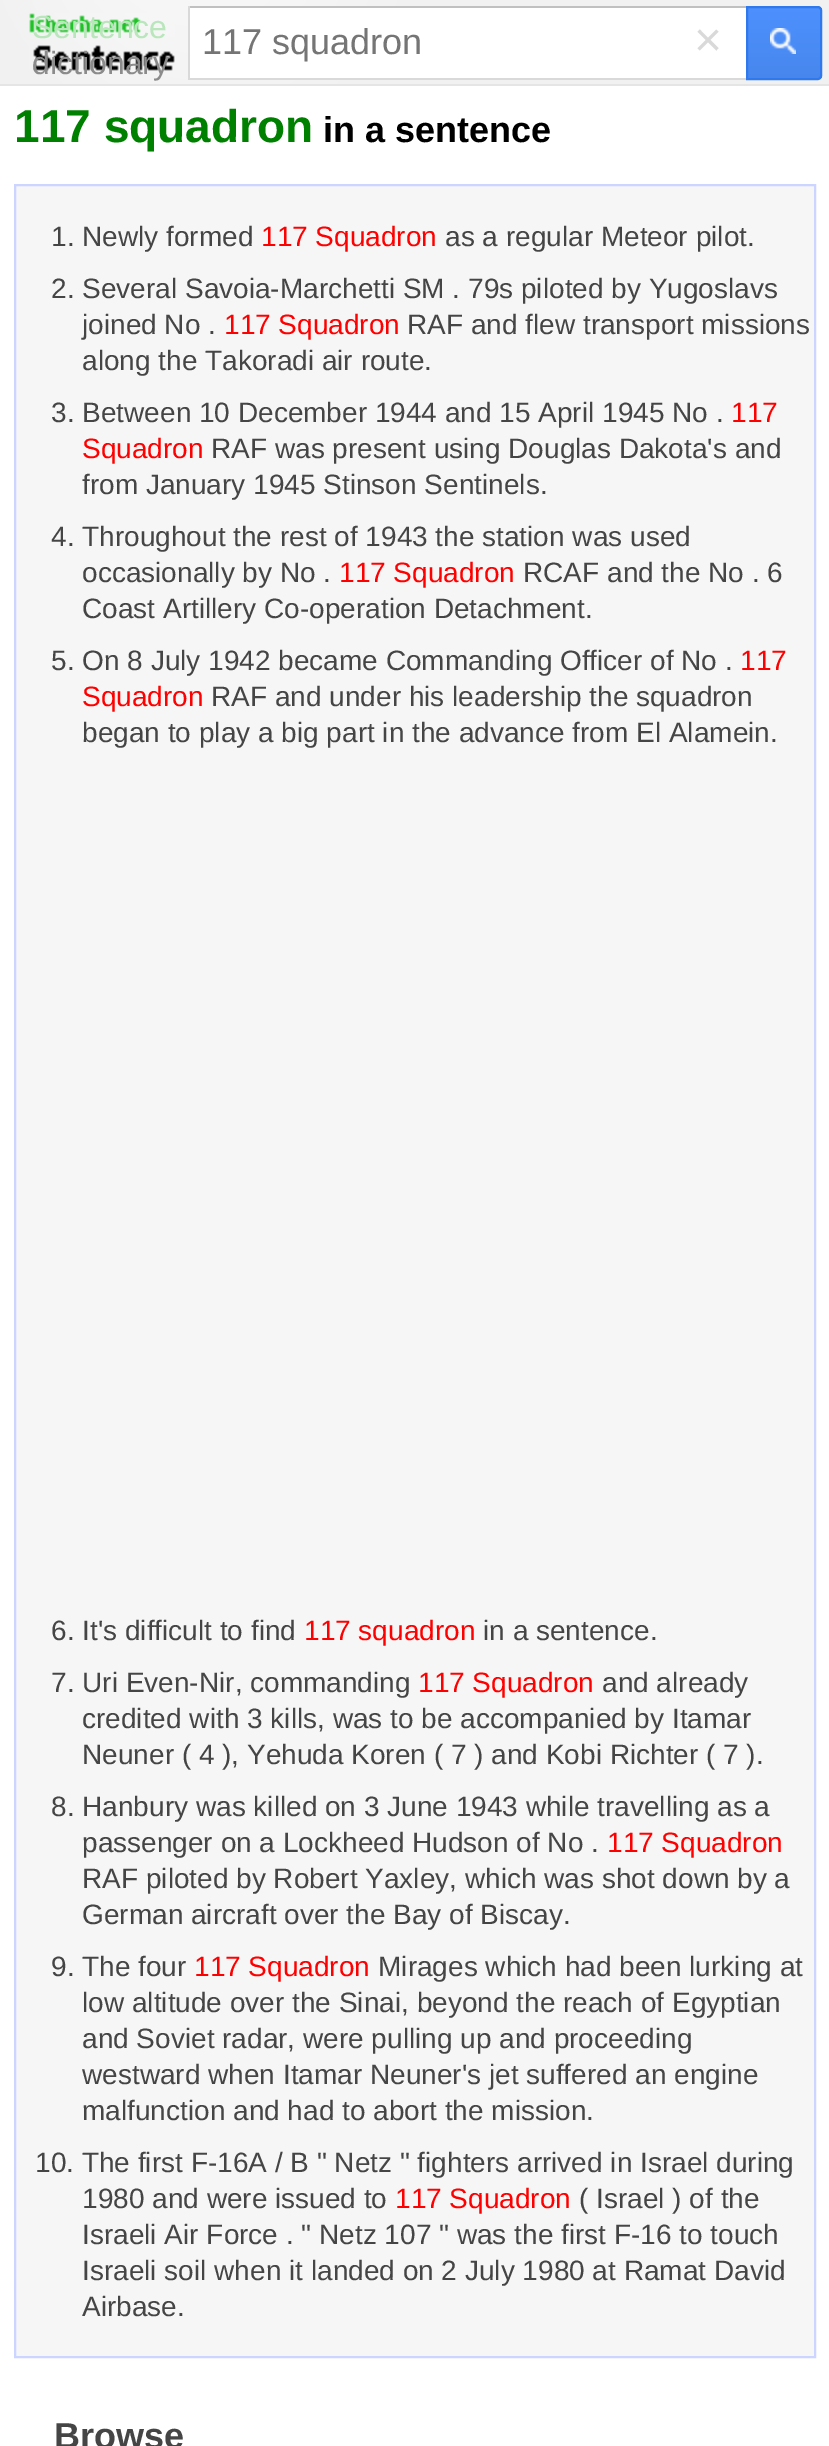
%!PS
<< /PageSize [829 2446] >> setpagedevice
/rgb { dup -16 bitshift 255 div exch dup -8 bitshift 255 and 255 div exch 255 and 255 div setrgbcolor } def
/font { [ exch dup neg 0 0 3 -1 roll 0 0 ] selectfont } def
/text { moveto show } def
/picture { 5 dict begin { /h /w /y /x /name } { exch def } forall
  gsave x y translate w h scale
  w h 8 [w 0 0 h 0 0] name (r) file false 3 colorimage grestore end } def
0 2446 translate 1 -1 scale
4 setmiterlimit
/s1 { /LiberationSans-Regular 32 font 16#B9E6BB rgb } def
/s2 { /LiberationSans-Regular 32 font 16#8B8B8B rgb } def
/s3 { /LiberationSans-Regular 36 font 16#757575 rgb } def
/s4 { /LiberationSans-Regular 48 font 16#D9D9D9 rgb } def
/s5 { /LiberationSans-Bold 46 font 16#008000 rgb } def
/s6 { /LiberationSans-Bold 36 font 16#000000 rgb } def
/s7 { /LiberationSans-Regular 28 font 16#454545 rgb } def
/s8 { /LiberationSans-Regular 28 font 16#FF0000 rgb } def
/s9 { /LiberationSans-Bold 36 font 16#454545 rgb } def
16#FFFFFF rgb
0 0 829 2446 rectfill
gsave 0 0 moveto 829 0 lineto 829 84 lineto 0 84 lineto closepath clip newpath 200 -80 translate 240 240 scale
<< /ShadingType 3 /ColorSpace /DeviceRGB /Coords [0 0 0 0 0 1] /Extend [true true] /Function << /FunctionType 2 /Domain [0 1] /C0 [0.98 0.98 0.98] /C1 [0.945 0.945 0.945] /N 1 >> >> shfill grestore
16#E5E5E5 rgb
0 84 829 2 rectfill
(pic1.raw) 29 13 146 58 picture
s1
(Sentence) 32 38 text
s2
(dictionary) 32 74 text
16#FFFFFF rgb
190 8 556 70 rectfill
16#C0C0C0 rgb
188 6 558 2 rectfill
16#D9D9D9 rgb
188 78 558 2 rectfill
188 6 2 74 rectfill
s3
(117 squadron) 202 54 text
s4
(×) 694 56 text
gsave 748 8 moveto 822 8 lineto 822 78 lineto 748 78 lineto closepath clip newpath
<< /ShadingType 2 /ColorSpace /DeviceRGB /Coords [748 8 748 78] /Extend [true true] /Function << /FunctionType 2 /Domain [0 1] /C0 [0.302 0.565 0.996] /C1 [0.278 0.529 0.929] /N 1 >> >> shfill grestore
16#3079ED rgb
2 setlinewidth
747 7 moveto 818 7 lineto 819.5 7 821 8.5 821 10 curveto 821 76 lineto 821 77.5 819.5 79 818 79 curveto 747 79 lineto closepath stroke
(pic2.raw) 770 28 26 26 picture
s5
(117 squadron) 14 142 text
s6
(in a sentence) 323 142 text
16#F6F6F6 rgb
15 185 moveto 815 185 lineto 815 2357 lineto 15 2357 lineto closepath gsave fill grestore
16#CCD5FF rgb
stroke
s7
(1. Newly formed) 51 246 text
s8
(117 Squadron) 261 246 text
s7
(as a regular Meteor pilot.) 445 246 text
(2. Several Savoia-Marchetti SM . 79s piloted by Yugoslavs) 51 298 text
(joined No .) 82 334 text
s8
(117 Squadron) 224 334 text
s7
(RAF and flew transport missions) 407 334 text
(along the Takoradi air route.) 82 370 text
(3. Between 10 December 1944 and 15 April 1945 No .) 51 422 text
s8
(117) 731 422 text
(Squadron) 82 458 text
s7
(RAF was present using Douglas Dakota's and) 211 458 text
(from January 1945 Stinson Sentinels.) 82 494 text
(4. Throughout the rest of 1943 the station was used) 51 546 text
(occasionally by No .) 82 582 text
s8
(117 Squadron) 339 582 text
s7
(RCAF and the No . 6) 523 582 text
(Coast Artillery Co-operation Detachment.) 82 618 text
(5. On 8 July 1942 became Commanding Officer of No .) 51 670 text
s8
(117) 740 670 text
(Squadron) 82 706 text
s7
(RAF and under his leadership the squadron) 211 706 text
(began to play a big part in the advance from El Alamein.) 82 742 text
(6. It's difficult to find) 51 1640 text
s8
(117 squadron) 304 1640 text
s7
(in a sentence.) 483 1640 text
(7. Uri Even-Nir, commanding) 51 1692 text
s8
(117 Squadron) 418 1692 text
s7
(and already) 602 1692 text
(credited with 3 kills, was to be accompanied by Itamar) 82 1728 text
(Neuner \( 4 \), Yehuda Koren \( 7 \) and Kobi Richter \( 7 \).) 82 1764 text
(8. Hanbury was killed on 3 June 1943 while travelling as a) 51 1816 text
(passenger on a Lockheed Hudson of No .) 82 1852 text
s8
(117 Squadron) 607 1852 text
s7
(RAF piloted by Robert Yaxley, which was shot down by a) 82 1888 text
(German aircraft over the Bay of Biscay.) 82 1924 text
(9. The four) 51 1976 text
s8
(117 Squadron) 194 1976 text
s7
(Mirages which had been lurking at) 378 1976 text
(low altitude over the Sinai, beyond the reach of Egyptian) 82 2012 text
(and Soviet radar, were pulling up and proceeding) 82 2048 text
(westward when Itamar Neuner's jet suffered an engine) 82 2084 text
(malfunction and had to abort the mission.) 82 2120 text
(10. The first F-16A / B " Netz " fighters arrived in Israel during) 35 2172 text
(1980 and were issued to) 82 2208 text
s8
(117 Squadron) 395 2208 text
s7
(\( Israel \) of the) 579 2208 text
(Israeli Air Force . " Netz 107 " was the first F-16 to touch) 82 2244 text
(Israeli soil when it landed on 2 July 1980 at Ramat David) 82 2280 text
(Airbase.) 82 2316 text
s9
(Browse) 54 2448 text
showpage
